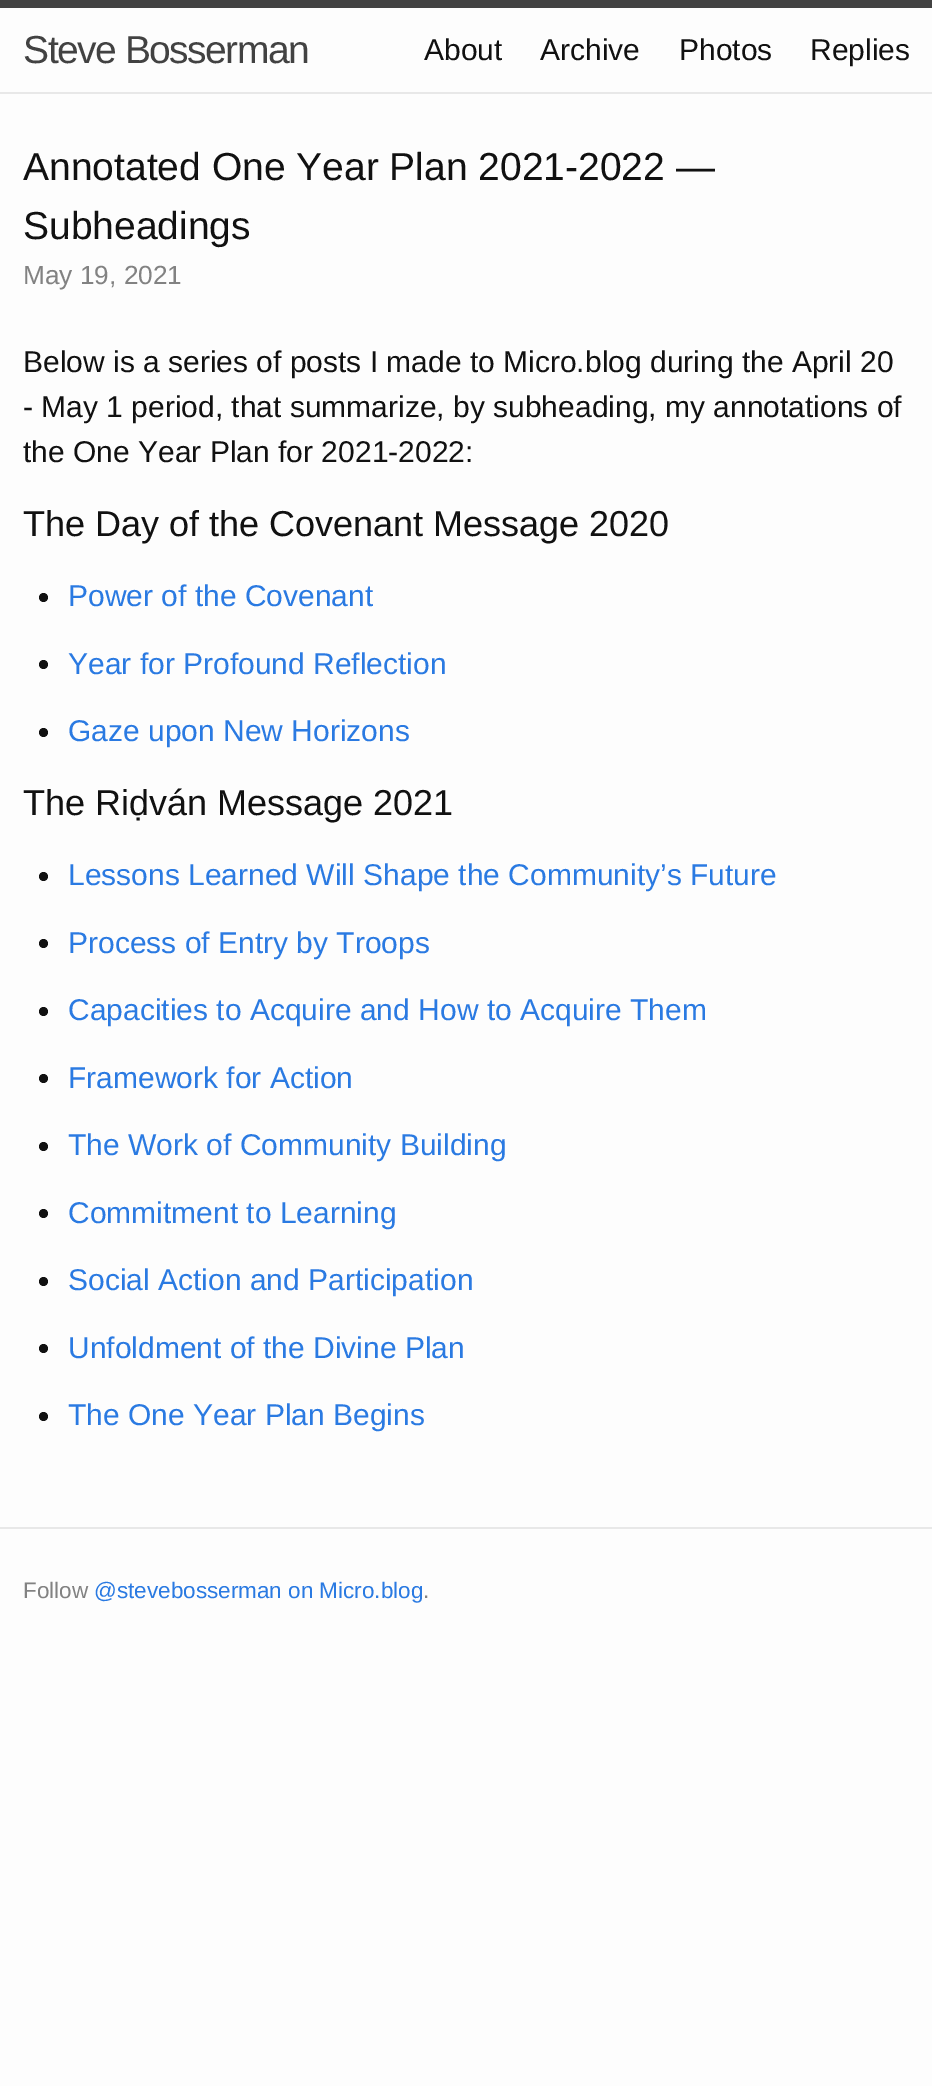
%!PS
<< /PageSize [932 2086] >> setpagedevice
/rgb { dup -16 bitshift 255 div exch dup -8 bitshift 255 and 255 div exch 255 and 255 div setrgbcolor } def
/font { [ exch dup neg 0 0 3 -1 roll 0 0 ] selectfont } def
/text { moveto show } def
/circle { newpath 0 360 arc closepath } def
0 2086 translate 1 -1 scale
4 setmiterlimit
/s1 { /LiberationSans-Regular 30 font 16#111111 rgb } def
/s2 { /LiberationSans-Regular 39 font 16#111111 rgb } def
/s3 { /LiberationSans-Regular 26.25 font 16#828282 rgb } def
/s4 { /LiberationSans-Regular 36 font 16#111111 rgb } def
/s5 { /LiberationSans-Regular 30 font 16#2A7AE2 rgb } def
/s6 { /LiberationSans-Regular 22.5 font 16#828282 rgb } def
/s7 { /LiberationSans-Regular 22.5 font 16#2A7AE2 rgb } def
16#FDFDFD rgb
0 0 932 2086 rectfill
16#424242 rgb
0 0 932 8 rectfill
16#E8E8E8 rgb
0 92 932 2 rectfill
/LiberationSans-Regular 39 font
16#424242 rgb
23 63 moveto -1.5 0 (Steve Bosserman) ashow
s1
(About) 424 60 text
(Archive) 540 60 text
(Photos) 679 60 text
(Replies) 810 60 text
s2
(Annotated One Year Plan 2021-2022 —) 23 180 text
(Subheadings) 23 239 text
s3
(May 19, 2021) 23 284 text
s1
(Below is a series of posts I made to Micro.blog during the April 20) 23 372 text
(- May 1 period, that summarize, by subheading, my annotations of) 23 417 text
(the One Year Plan for 2021-2022:) 23 462 text
s4
(The Day of the Covenant Message 2020) 23 536 text
43.5 597.5 4.5 circle fill
s5
(Power of the Covenant) 68 606 text
16#111111 rgb
43.5 664.5 4.5 circle fill
s5
(Year for Profound Reflection) 68 674 text
16#111111 rgb
43.5 732.5 4.5 circle fill
s5
(Gaze upon New Horizons) 68 741 text
s4
(The Riḍván Message 2021) 23 815 text
43.5 876.5 4.5 circle fill
s5
(Lessons Learned Will Shape the Community’s Future) 68 885 text
16#111111 rgb
43.5 943.5 4.5 circle fill
s5
(Process of Entry by Troops) 68 953 text
16#111111 rgb
43.5 1011.5 4.5 circle fill
s5
(Capacities to Acquire and How to Acquire Them) 68 1020 text
16#111111 rgb
43.5 1078.5 4.5 circle fill
s5
(Framework for Action) 68 1088 text
16#111111 rgb
43.5 1146.5 4.5 circle fill
s5
(The Work of Community Building) 68 1155 text
16#111111 rgb
43.5 1213.5 4.5 circle fill
s5
(Commitment to Learning) 68 1223 text
16#111111 rgb
43.5 1281.5 4.5 circle fill
s5
(Social Action and Participation) 68 1290 text
16#111111 rgb
43.5 1348.5 4.5 circle fill
s5
(Unfoldment of the Divine Plan) 68 1358 text
16#111111 rgb
43.5 1416.5 4.5 circle fill
s5
(The One Year Plan Begins) 68 1425 text
16#E8E8E8 rgb
0 1527 932 2 rectfill
s6
(Follow) 23 1598 text
s7
(@stevebosserman on Micro.blog) 94 1598 text
s6
(.) 423 1598 text
showpage
